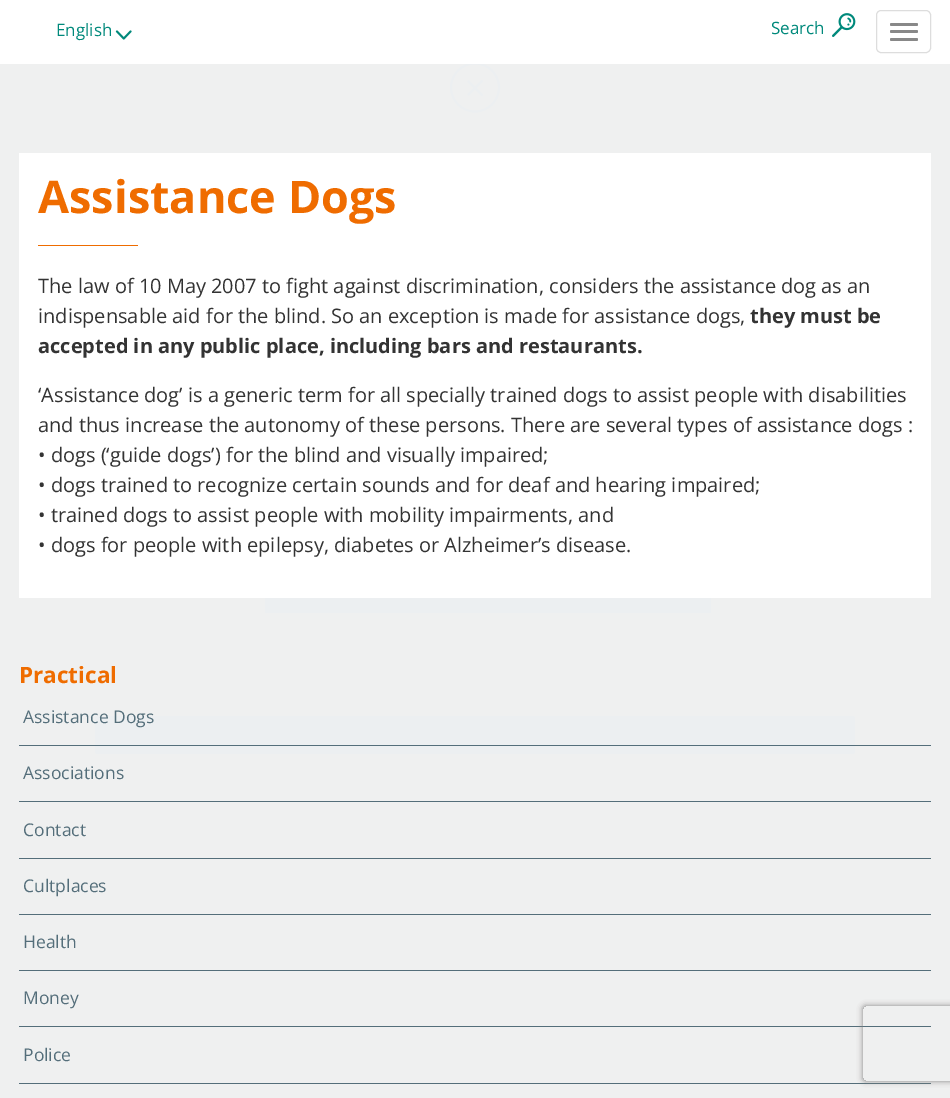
%!PS
<< /PageSize [950 1098] /PageUsesTransparency true >> setpagedevice
/rgb { dup -16 bitshift 255 div exch dup -8 bitshift 255 and 255 div exch 255 and 255 div setrgbcolor } def
/font { [ exch dup neg 0 0 3 -1 roll 0 0 ] selectfont } def
/text { moveto show } def
/alpha { dup .setfillconstantalpha .setstrokeconstantalpha } def
/circle { newpath 0 360 arc closepath } def
/roundrect { 5 dict begin { /r /h /w /y /x } { exch def } forall
  x r add y moveto x w add y 2 copy h add r arct x w add y h add x 1 index r arct
  x y h add x y r arct x y 2 copy exch w add exch r arct closepath end } def
/shadow { 12 dict begin { /a /b /q /h /w /y /x } { exch def } forall gsave /was 0 def
  9 -2 -9 { dup b mul 4 div /e exch def 1 sub .425 mul 2.718 exch exp 1 add a .99 .min exch div /now exch def
    1 1 now sub 1 was sub div sub alpha /was now def
    w h .min e 2 mul add 0 gt { x e sub y e sub w e 2 mul add h e 2 mul add
      q e add b .6 mul add w h .min 2 div e add .min 0 .max roundrect fill } if } for grestore end } def
/picture { 5 dict begin { /h /w /y /x /name } { exch def } forall
  gsave x y translate w h scale
  w h 8 [w 0 0 h 0 0] name (r) file false 3 colorimage grestore end } def
0 .pushpdf14devicefilter
0 1098 translate 1 -1 scale
4 setmiterlimit
/s1 { /OpenSans-Regular 17 font 16#00897B rgb } def
/s2 { /OpenSans-Bold 45 font 16#EF6C00 rgb } def
/s3 { /OpenSans-Regular 20 font 16#333333 rgb } def
/s4 { /OpenSans-Bold 20 font 16#333333 rgb } def
/s5 { /OpenSans-Bold 22.5 font 16#EF6C00 rgb } def
/s6 { /OpenSans-Regular 17.5 font 16#546E7A rgb } def
16#EFF0F0 rgb
0 0 950 1098 rectfill
16#ECEFF1 rgb
1.9 setlinewidth
475 87.5 24 circle stroke
16#FFFFFF rgb
0 0 950 64 rectfill
s1
(English) 56 36 text
(pic1.raw) 115 30 17 10 picture
(Search) 771 34 text
(pic2.raw) 832 13 24 24 picture
16#DDDDDD rgb
1 setlinewidth
876.5 10.5 54 42 4.5 roundrect stroke
16#888888 rgb
890 23 28 3 1.5 roundrect fill
890 30 28 3 1.5 roundrect fill
890 38 28 3 1.5 roundrect fill
16#ECEFF1 rgb
1.9 setlinewidth
482.5 95.5 moveto 468 81 lineto 482.5 80.5 moveto 468 95 lineto stroke
265 598 446 15 rectfill
95 716 760 38 2.5 roundrect fill
16#FFFFFF rgb
19 153 912 445 rectfill
s2
(Assistance Dogs) 38 213 text
38 245 100 1 rectfill
s3
(The law of 10 May 2007 to fight against discrimination, considers the assistance dog as an) 38 293 text
(indispensable aid for the blind. So an exception is made for assistance dogs,) 38 323 text
s4
(they must be) 750 323 text
(accepted in any public place, including bars and restaurants.) 38 353 text
s3
(‘Assistance dog’ is a generic term for all specially trained dogs to assist people with disabilities) 38 402 text
(and thus increase the autonomy of these persons. There are several types of assistance dogs :) 38 432 text
(• dogs \(‘guide dogs’\) for the blind and visually impaired;) 38 462 text
(• dogs trained to recognize certain sounds and for deaf and hearing impaired;) 38 492 text
(• trained dogs to assist people with mobility impairments, and) 38 522 text
(• dogs for people with epilepsy, diabetes or Alzheimer’s disease.) 38 552 text
s5
(Practical) 19 683 text
16#546E7A rgb
19 745 912 1 rectfill
s6
(Assistance Dogs) 23 723 text
19 801 912 1 rectfill
(Associations) 23 779 text
19 858 912 1 rectfill
(Contact) 23 836 text
19 914 912 1 rectfill
(Cultplaces) 23 892 text
19 970 912 1 rectfill
(Health) 23 948 text
19 1026 912 1 rectfill
(Money) 23 1004 text
19 1083 912 1 rectfill
(Police) 23 1061 text
gsave
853 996 moveto 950 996 lineto 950 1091 lineto 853 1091 lineto closepath 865.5 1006 moveto 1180.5 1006 lineto 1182 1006 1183 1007 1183 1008.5 curveto 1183 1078.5 lineto 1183 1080 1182 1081 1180.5 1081 curveto 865.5 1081 lineto 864 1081 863 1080 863 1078.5 curveto 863 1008.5 lineto 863 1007 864 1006 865.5 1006 curveto closepath eoclip newpath
16#808080 rgb
863 1006 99 75 2.5 3 1 shadow
grestore
.poppdf14devicefilter showpage
